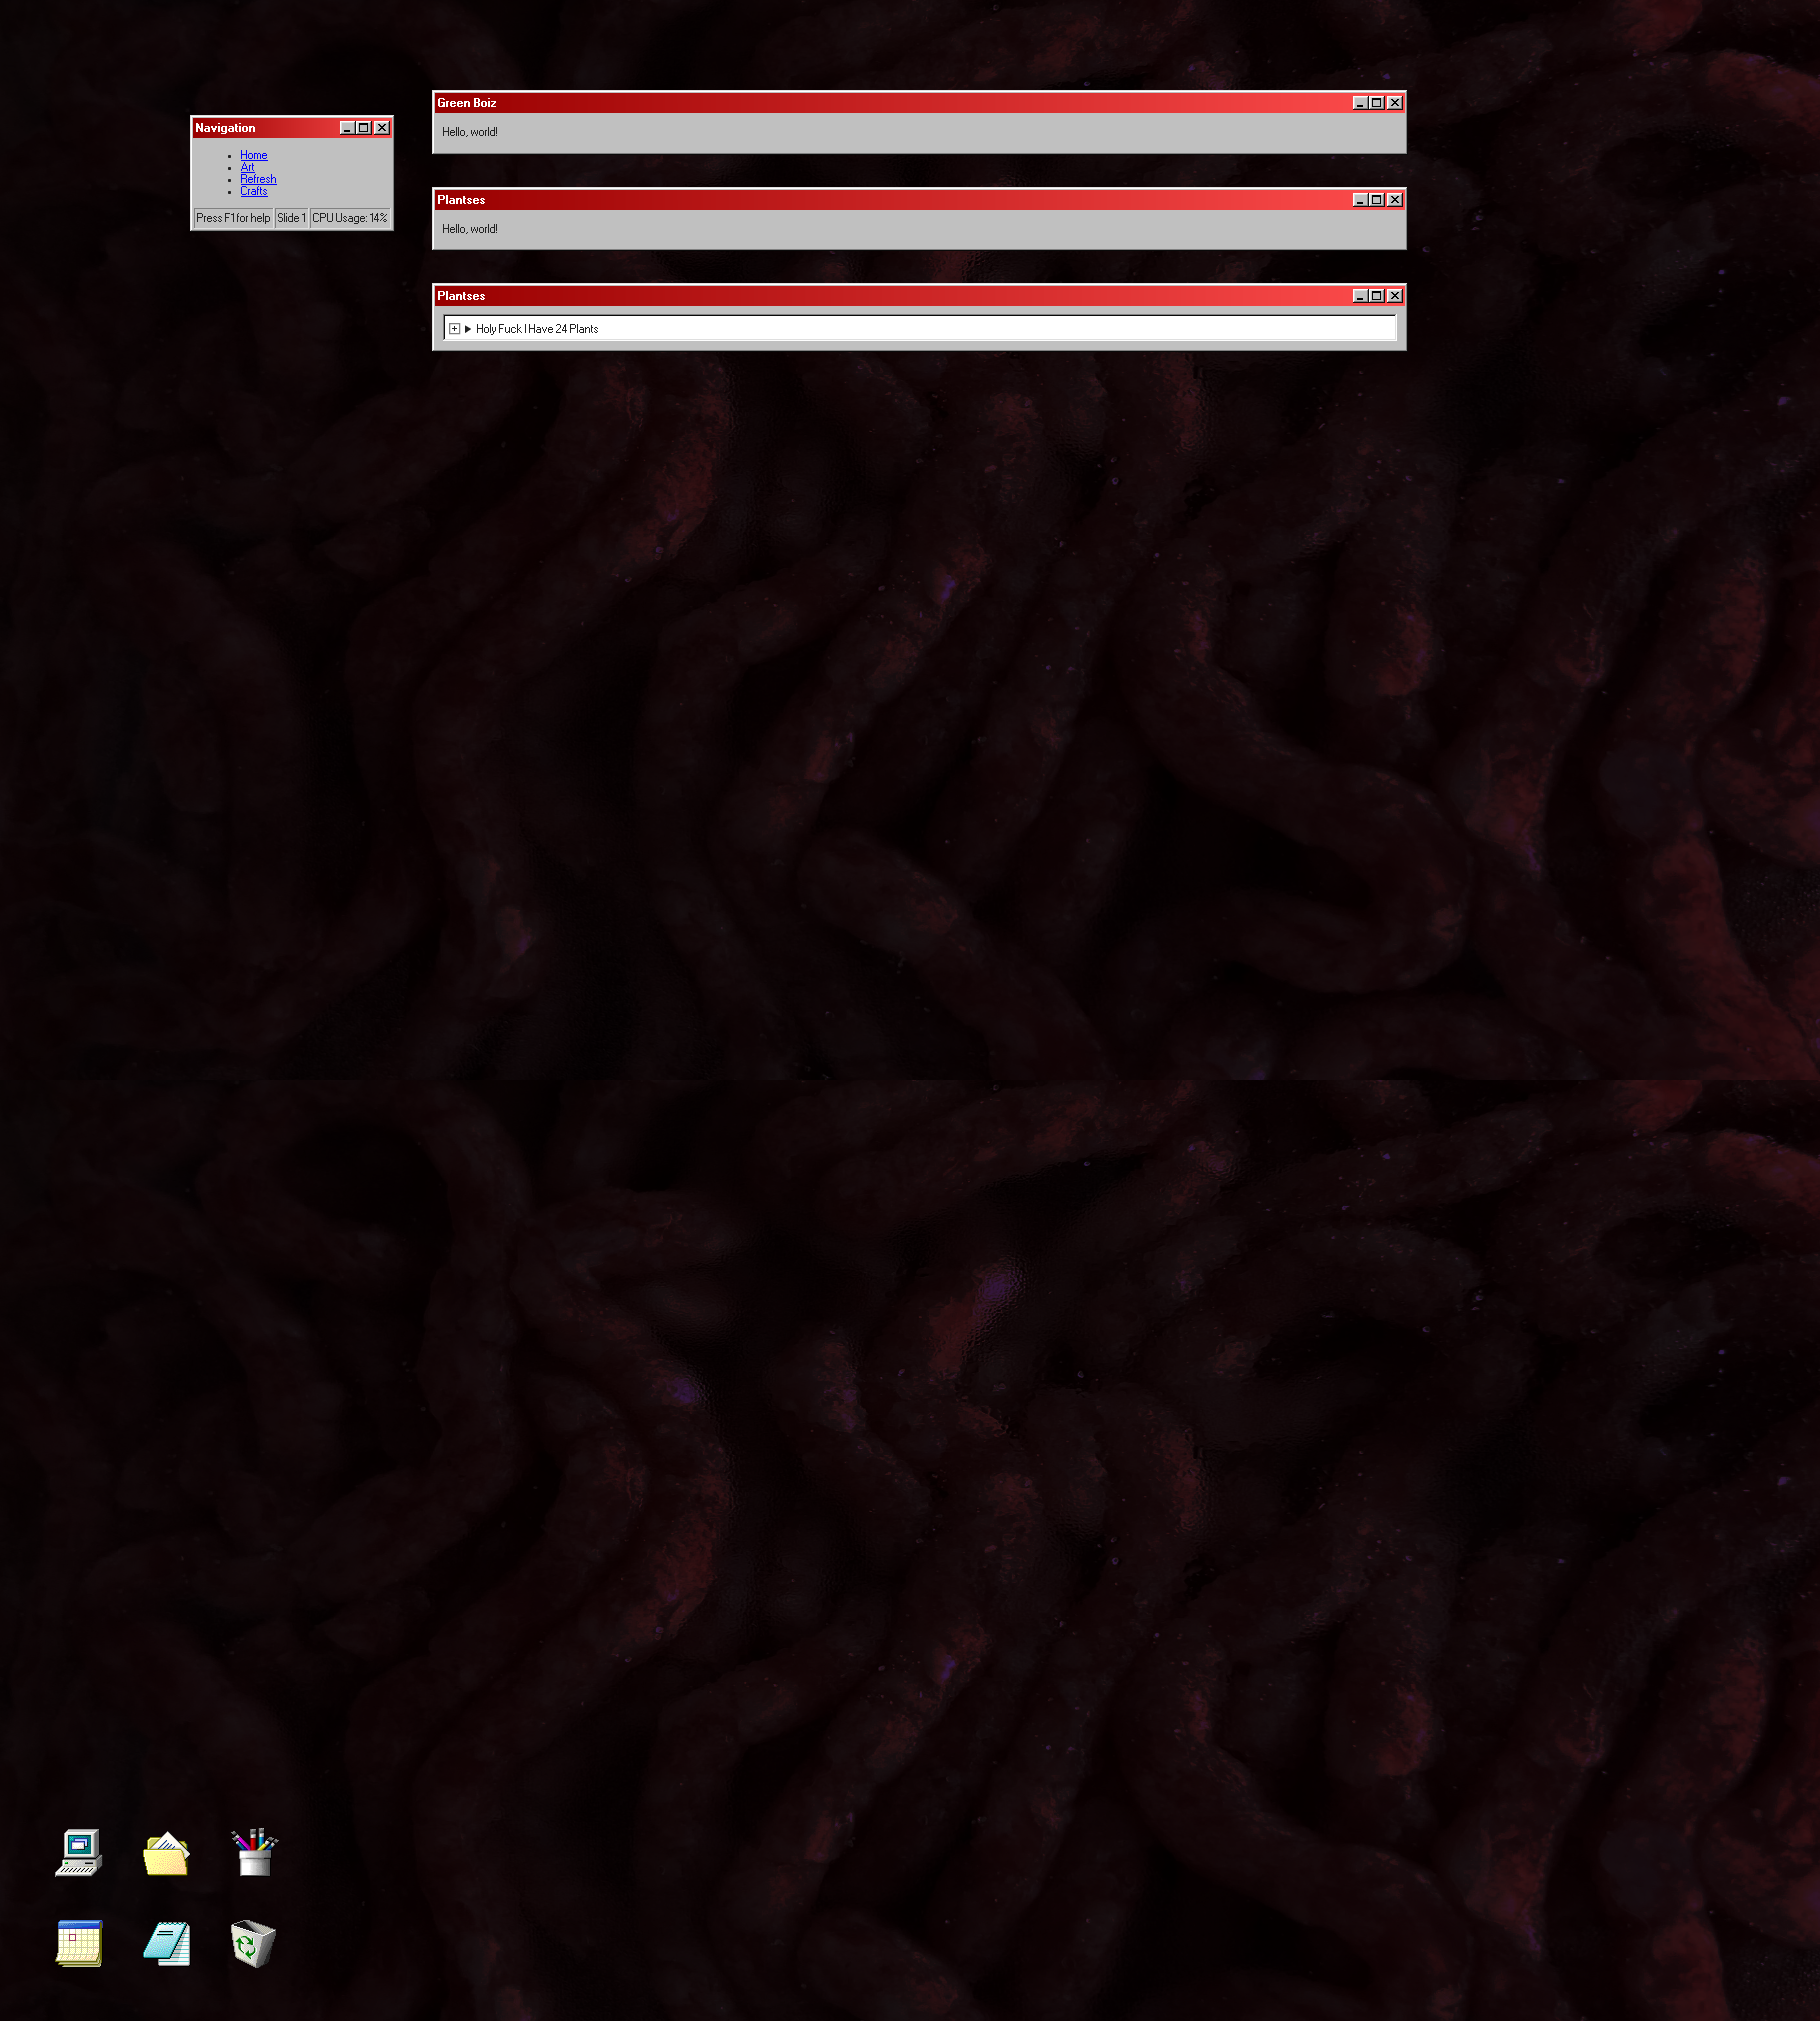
%!PS
<< /PageSize [1820 2021] >> setpagedevice
/rgb { dup -16 bitshift 255 div exch dup -8 bitshift 255 and 255 div exch 255 and 255 div setrgbcolor } def
/font { [ exch dup neg 0 0 3 -1 roll 0 0 ] selectfont } def
/text { moveto show } def
/circle { newpath 0 360 arc closepath } def
/picture { 5 dict begin { /h /w /y /x /name } { exch def } forall
  gsave x y translate w h scale
  w h 8 [w 0 0 h 0 0] name (r) file false 3 colorimage grestore end } def
0 2021 translate 1 -1 scale
4 setmiterlimit
/s1 { /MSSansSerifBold-Bold 11 font 16#FFFFFF rgb } def
/s2 { /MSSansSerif-Regular 11 font 16#0000FF rgb } def
/s3 { /MSSansSerif-Regular 11 font 16#222222 rgb } def
16#FFFFFF rgb
0 0 1820 2021 rectfill
(pic1.raw) 0 0 1820 2021 picture
16#C0C0C0 rgb
192 117 201 113 rectfill
gsave
190 115 205 117 rectclip
16#FFFFFF rgb
91 16 moveto 494 16 lineto 494 331 lineto 91 331 lineto closepath 192 117 moveto 397 117 lineto 397 234 lineto 192 234 lineto closepath eofill
16#808080 rgb
91 16 moveto 494 16 lineto 494 331 lineto 91 331 lineto closepath 188 113 moveto 393 113 lineto 393 230 lineto 188 230 lineto closepath eofill
16#DFDFDF rgb
91 16 moveto 494 16 lineto 494 331 lineto 91 331 lineto closepath 191 116 moveto 396 116 lineto 396 233 lineto 191 233 lineto closepath eofill
16#0A0A0A rgb
91 16 moveto 494 16 lineto 494 331 lineto 91 331 lineto closepath 189 114 moveto 394 114 lineto 394 231 lineto 189 231 lineto closepath eofill
grestore
gsave 193 118 moveto 392 118 lineto 392 138 lineto 193 138 lineto closepath clip newpath
<< /ShadingType 2 /ColorSpace /DeviceRGB /Coords [193 128 392 128] /Extend [true true] /Function << /FunctionType 2 /Domain [0 1] /C0 [0.6 0 0] /C1 [1 0.302 0.302] /N 1 >> >> shfill grestore
s1
(Navigation) 196 132 text
16#C0C0C0 rgb
342 123 12 10 rectfill
16#000000 rgb
344 130 6 2 rectfill
gsave
340 121 16 14 rectclip
16#DFDFDF rgb
241 22 moveto 455 22 lineto 455 234 lineto 241 234 lineto closepath 342 123 moveto 358 123 lineto 358 137 lineto 342 137 lineto closepath eofill
16#808080 rgb
241 22 moveto 455 22 lineto 455 234 lineto 241 234 lineto closepath 338 119 moveto 354 119 lineto 354 133 lineto 338 133 lineto closepath eofill
16#FFFFFF rgb
241 22 moveto 455 22 lineto 455 234 lineto 241 234 lineto closepath 341 122 moveto 357 122 lineto 357 136 lineto 341 136 lineto closepath eofill
16#0A0A0A rgb
241 22 moveto 455 22 lineto 455 234 lineto 241 234 lineto closepath 339 120 moveto 355 120 lineto 355 134 lineto 339 134 lineto closepath eofill
grestore
16#C0C0C0 rgb
358 123 12 10 rectfill
(pic2.raw) 359 123 9 9 picture
gsave
356 121 16 14 rectclip
16#DFDFDF rgb
257 22 moveto 471 22 lineto 471 234 lineto 257 234 lineto closepath 358 123 moveto 374 123 lineto 374 137 lineto 358 137 lineto closepath eofill
16#808080 rgb
257 22 moveto 471 22 lineto 471 234 lineto 257 234 lineto closepath 354 119 moveto 370 119 lineto 370 133 lineto 354 133 lineto closepath eofill
16#FFFFFF rgb
257 22 moveto 471 22 lineto 471 234 lineto 257 234 lineto closepath 357 122 moveto 373 122 lineto 373 136 lineto 357 136 lineto closepath eofill
16#0A0A0A rgb
257 22 moveto 471 22 lineto 471 234 lineto 257 234 lineto closepath 355 120 moveto 371 120 lineto 371 134 lineto 355 134 lineto closepath eofill
grestore
376 123 12 10 rectfill
(pic3.raw) 378 124 8 7 picture
gsave
374 121 16 14 rectclip
16#DFDFDF rgb
275 22 moveto 489 22 lineto 489 234 lineto 275 234 lineto closepath 376 123 moveto 392 123 lineto 392 137 lineto 376 137 lineto closepath eofill
16#808080 rgb
275 22 moveto 489 22 lineto 489 234 lineto 275 234 lineto closepath 372 119 moveto 388 119 lineto 388 133 lineto 372 133 lineto closepath eofill
16#FFFFFF rgb
275 22 moveto 489 22 lineto 489 234 lineto 275 234 lineto closepath 375 122 moveto 391 122 lineto 391 136 lineto 375 136 lineto closepath eofill
16#0A0A0A rgb
275 22 moveto 489 22 lineto 489 234 lineto 275 234 lineto closepath 373 120 moveto 389 120 lineto 389 134 lineto 373 134 lineto closepath eofill
grestore
16#222222 rgb
229.5 156.5 1.5 circle fill
s2
(Home) 241 159 text
241 160 27 1 rectfill
16#222222 rgb
229.5 168.5 1.5 circle fill
s2
(Art) 241 171 text
241 172 14 1 rectfill
16#222222 rgb
229.5 180.5 1.5 circle fill
s2
(Refresh) 241 183 text
241 184 36 1 rectfill
16#222222 rgb
229.5 192.5 1.5 circle fill
s2
(Crafts) 241 195 text
241 196 27 1 rectfill
gsave
194 208 80 21 rectclip
16#808080 rgb
95 109 moveto 373 109 lineto 373 328 lineto 95 328 lineto closepath 195 209 moveto 275 209 lineto 275 230 lineto 195 230 lineto closepath eofill
16#DFDFDF rgb
95 109 moveto 373 109 lineto 373 328 lineto 95 328 lineto closepath 193 207 moveto 273 207 lineto 273 228 lineto 193 228 lineto closepath eofill
grestore
s3
(Press F1 for help) 197 222 text
gsave
275 208 34 21 rectclip
16#808080 rgb
176 109 moveto 408 109 lineto 408 328 lineto 176 328 lineto closepath 276 209 moveto 310 209 lineto 310 230 lineto 276 230 lineto closepath eofill
16#DFDFDF rgb
176 109 moveto 408 109 lineto 408 328 lineto 176 328 lineto closepath 274 207 moveto 308 207 lineto 308 228 lineto 274 228 lineto closepath eofill
grestore
(Slide 1) 278 222 text
gsave
310 208 81 21 rectclip
16#808080 rgb
211 109 moveto 490 109 lineto 490 328 lineto 211 328 lineto closepath 311 209 moveto 392 209 lineto 392 230 lineto 311 230 lineto closepath eofill
16#DFDFDF rgb
211 109 moveto 490 109 lineto 490 328 lineto 211 328 lineto closepath 309 207 moveto 390 207 lineto 390 228 lineto 309 228 lineto closepath eofill
grestore
(CPU Usage: 14%) 313 222 text
16#C0C0C0 rgb
434 92 972 61 rectfill
gsave
432 90 976 65 rectclip
16#FFFFFF rgb
333 -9 moveto 1507 -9 lineto 1507 254 lineto 333 254 lineto closepath 434 92 moveto 1410 92 lineto 1410 157 lineto 434 157 lineto closepath eofill
16#808080 rgb
333 -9 moveto 1507 -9 lineto 1507 254 lineto 333 254 lineto closepath 430 88 moveto 1406 88 lineto 1406 153 lineto 430 153 lineto closepath eofill
16#DFDFDF rgb
333 -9 moveto 1507 -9 lineto 1507 254 lineto 333 254 lineto closepath 433 91 moveto 1409 91 lineto 1409 156 lineto 433 156 lineto closepath eofill
16#0A0A0A rgb
333 -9 moveto 1507 -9 lineto 1507 254 lineto 333 254 lineto closepath 431 89 moveto 1407 89 lineto 1407 154 lineto 431 154 lineto closepath eofill
grestore
gsave 435 93 moveto 1405 93 lineto 1405 113 lineto 435 113 lineto closepath clip newpath
<< /ShadingType 2 /ColorSpace /DeviceRGB /Coords [435 103 1405 103] /Extend [true true] /Function << /FunctionType 2 /Domain [0 1] /C0 [0.6 0 0] /C1 [1 0.302 0.302] /N 1 >> >> shfill grestore
s1
(Green Boiz) 438 107 text
16#C0C0C0 rgb
1355 98 12 10 rectfill
16#000000 rgb
1357 105 6 2 rectfill
gsave
1353 96 16 14 rectclip
16#DFDFDF rgb
1254 -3 moveto 1468 -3 lineto 1468 209 lineto 1254 209 lineto closepath 1355 98 moveto 1371 98 lineto 1371 112 lineto 1355 112 lineto closepath eofill
16#808080 rgb
1254 -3 moveto 1468 -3 lineto 1468 209 lineto 1254 209 lineto closepath 1351 94 moveto 1367 94 lineto 1367 108 lineto 1351 108 lineto closepath eofill
16#FFFFFF rgb
1254 -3 moveto 1468 -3 lineto 1468 209 lineto 1254 209 lineto closepath 1354 97 moveto 1370 97 lineto 1370 111 lineto 1354 111 lineto closepath eofill
16#0A0A0A rgb
1254 -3 moveto 1468 -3 lineto 1468 209 lineto 1254 209 lineto closepath 1352 95 moveto 1368 95 lineto 1368 109 lineto 1352 109 lineto closepath eofill
grestore
16#C0C0C0 rgb
1371 98 12 10 rectfill
(pic2.raw) 1372 98 9 9 picture
gsave
1369 96 16 14 rectclip
16#DFDFDF rgb
1270 -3 moveto 1484 -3 lineto 1484 209 lineto 1270 209 lineto closepath 1371 98 moveto 1387 98 lineto 1387 112 lineto 1371 112 lineto closepath eofill
16#808080 rgb
1270 -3 moveto 1484 -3 lineto 1484 209 lineto 1270 209 lineto closepath 1367 94 moveto 1383 94 lineto 1383 108 lineto 1367 108 lineto closepath eofill
16#FFFFFF rgb
1270 -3 moveto 1484 -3 lineto 1484 209 lineto 1270 209 lineto closepath 1370 97 moveto 1386 97 lineto 1386 111 lineto 1370 111 lineto closepath eofill
16#0A0A0A rgb
1270 -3 moveto 1484 -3 lineto 1484 209 lineto 1270 209 lineto closepath 1368 95 moveto 1384 95 lineto 1384 109 lineto 1368 109 lineto closepath eofill
grestore
1389 98 12 10 rectfill
(pic3.raw) 1391 99 8 7 picture
gsave
1387 96 16 14 rectclip
16#DFDFDF rgb
1288 -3 moveto 1502 -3 lineto 1502 209 lineto 1288 209 lineto closepath 1389 98 moveto 1405 98 lineto 1405 112 lineto 1389 112 lineto closepath eofill
16#808080 rgb
1288 -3 moveto 1502 -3 lineto 1502 209 lineto 1288 209 lineto closepath 1385 94 moveto 1401 94 lineto 1401 108 lineto 1385 108 lineto closepath eofill
16#FFFFFF rgb
1288 -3 moveto 1502 -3 lineto 1502 209 lineto 1288 209 lineto closepath 1388 97 moveto 1404 97 lineto 1404 111 lineto 1388 111 lineto closepath eofill
16#0A0A0A rgb
1288 -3 moveto 1502 -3 lineto 1502 209 lineto 1288 209 lineto closepath 1386 95 moveto 1402 95 lineto 1402 109 lineto 1386 109 lineto closepath eofill
grestore
s3
(Hello, world!) 443 136 text
16#C0C0C0 rgb
434 189 972 60 rectfill
gsave
432 187 976 64 rectclip
16#FFFFFF rgb
333 88 moveto 1507 88 lineto 1507 350 lineto 333 350 lineto closepath 434 189 moveto 1410 189 lineto 1410 253 lineto 434 253 lineto closepath eofill
16#808080 rgb
333 88 moveto 1507 88 lineto 1507 350 lineto 333 350 lineto closepath 430 185 moveto 1406 185 lineto 1406 249 lineto 430 249 lineto closepath eofill
16#DFDFDF rgb
333 88 moveto 1507 88 lineto 1507 350 lineto 333 350 lineto closepath 433 188 moveto 1409 188 lineto 1409 252 lineto 433 252 lineto closepath eofill
16#0A0A0A rgb
333 88 moveto 1507 88 lineto 1507 350 lineto 333 350 lineto closepath 431 186 moveto 1407 186 lineto 1407 250 lineto 431 250 lineto closepath eofill
grestore
gsave 435 190 moveto 1405 190 lineto 1405 210 lineto 435 210 lineto closepath clip newpath
<< /ShadingType 2 /ColorSpace /DeviceRGB /Coords [435 200 1405 200] /Extend [true true] /Function << /FunctionType 2 /Domain [0 1] /C0 [0.6 0 0] /C1 [1 0.302 0.302] /N 1 >> >> shfill grestore
s1
(Plantses) 438 204 text
16#C0C0C0 rgb
1355 195 12 10 rectfill
16#000000 rgb
1357 202 6 2 rectfill
gsave
1353 193 16 14 rectclip
16#DFDFDF rgb
1254 94 moveto 1468 94 lineto 1468 306 lineto 1254 306 lineto closepath 1355 195 moveto 1371 195 lineto 1371 209 lineto 1355 209 lineto closepath eofill
16#808080 rgb
1254 94 moveto 1468 94 lineto 1468 306 lineto 1254 306 lineto closepath 1351 191 moveto 1367 191 lineto 1367 205 lineto 1351 205 lineto closepath eofill
16#FFFFFF rgb
1254 94 moveto 1468 94 lineto 1468 306 lineto 1254 306 lineto closepath 1354 194 moveto 1370 194 lineto 1370 208 lineto 1354 208 lineto closepath eofill
16#0A0A0A rgb
1254 94 moveto 1468 94 lineto 1468 306 lineto 1254 306 lineto closepath 1352 192 moveto 1368 192 lineto 1368 206 lineto 1352 206 lineto closepath eofill
grestore
16#C0C0C0 rgb
1371 195 12 10 rectfill
(pic2.raw) 1372 195 9 9 picture
gsave
1369 193 16 14 rectclip
16#DFDFDF rgb
1270 94 moveto 1484 94 lineto 1484 306 lineto 1270 306 lineto closepath 1371 195 moveto 1387 195 lineto 1387 209 lineto 1371 209 lineto closepath eofill
16#808080 rgb
1270 94 moveto 1484 94 lineto 1484 306 lineto 1270 306 lineto closepath 1367 191 moveto 1383 191 lineto 1383 205 lineto 1367 205 lineto closepath eofill
16#FFFFFF rgb
1270 94 moveto 1484 94 lineto 1484 306 lineto 1270 306 lineto closepath 1370 194 moveto 1386 194 lineto 1386 208 lineto 1370 208 lineto closepath eofill
16#0A0A0A rgb
1270 94 moveto 1484 94 lineto 1484 306 lineto 1270 306 lineto closepath 1368 192 moveto 1384 192 lineto 1384 206 lineto 1368 206 lineto closepath eofill
grestore
1389 195 12 10 rectfill
(pic3.raw) 1391 196 8 7 picture
gsave
1387 193 16 14 rectclip
16#DFDFDF rgb
1288 94 moveto 1502 94 lineto 1502 306 lineto 1288 306 lineto closepath 1389 195 moveto 1405 195 lineto 1405 209 lineto 1389 209 lineto closepath eofill
16#808080 rgb
1288 94 moveto 1502 94 lineto 1502 306 lineto 1288 306 lineto closepath 1385 191 moveto 1401 191 lineto 1401 205 lineto 1385 205 lineto closepath eofill
16#FFFFFF rgb
1288 94 moveto 1502 94 lineto 1502 306 lineto 1288 306 lineto closepath 1388 194 moveto 1404 194 lineto 1404 208 lineto 1388 208 lineto closepath eofill
16#0A0A0A rgb
1288 94 moveto 1502 94 lineto 1502 306 lineto 1288 306 lineto closepath 1386 192 moveto 1402 192 lineto 1402 206 lineto 1386 206 lineto closepath eofill
grestore
s3
(Hello, world!) 443 233 text
16#C0C0C0 rgb
434 285 972 65 rectfill
gsave
432 283 976 69 rectclip
16#FFFFFF rgb
333 184 moveto 1507 184 lineto 1507 451 lineto 333 451 lineto closepath 434 285 moveto 1410 285 lineto 1410 354 lineto 434 354 lineto closepath eofill
16#808080 rgb
333 184 moveto 1507 184 lineto 1507 451 lineto 333 451 lineto closepath 430 281 moveto 1406 281 lineto 1406 350 lineto 430 350 lineto closepath eofill
16#DFDFDF rgb
333 184 moveto 1507 184 lineto 1507 451 lineto 333 451 lineto closepath 433 284 moveto 1409 284 lineto 1409 353 lineto 433 353 lineto closepath eofill
16#0A0A0A rgb
333 184 moveto 1507 184 lineto 1507 451 lineto 333 451 lineto closepath 431 282 moveto 1407 282 lineto 1407 351 lineto 431 351 lineto closepath eofill
grestore
gsave 435 286 moveto 1405 286 lineto 1405 306 lineto 435 306 lineto closepath clip newpath
<< /ShadingType 2 /ColorSpace /DeviceRGB /Coords [435 296 1405 296] /Extend [true true] /Function << /FunctionType 2 /Domain [0 1] /C0 [0.6 0 0] /C1 [1 0.302 0.302] /N 1 >> >> shfill grestore
s1
(Plantses) 438 300 text
16#C0C0C0 rgb
1355 291 12 10 rectfill
16#000000 rgb
1357 298 6 2 rectfill
gsave
1353 289 16 14 rectclip
16#DFDFDF rgb
1254 190 moveto 1468 190 lineto 1468 402 lineto 1254 402 lineto closepath 1355 291 moveto 1371 291 lineto 1371 305 lineto 1355 305 lineto closepath eofill
16#808080 rgb
1254 190 moveto 1468 190 lineto 1468 402 lineto 1254 402 lineto closepath 1351 287 moveto 1367 287 lineto 1367 301 lineto 1351 301 lineto closepath eofill
16#FFFFFF rgb
1254 190 moveto 1468 190 lineto 1468 402 lineto 1254 402 lineto closepath 1354 290 moveto 1370 290 lineto 1370 304 lineto 1354 304 lineto closepath eofill
16#0A0A0A rgb
1254 190 moveto 1468 190 lineto 1468 402 lineto 1254 402 lineto closepath 1352 288 moveto 1368 288 lineto 1368 302 lineto 1352 302 lineto closepath eofill
grestore
16#C0C0C0 rgb
1371 291 12 10 rectfill
(pic2.raw) 1372 291 9 9 picture
gsave
1369 289 16 14 rectclip
16#DFDFDF rgb
1270 190 moveto 1484 190 lineto 1484 402 lineto 1270 402 lineto closepath 1371 291 moveto 1387 291 lineto 1387 305 lineto 1371 305 lineto closepath eofill
16#808080 rgb
1270 190 moveto 1484 190 lineto 1484 402 lineto 1270 402 lineto closepath 1367 287 moveto 1383 287 lineto 1383 301 lineto 1367 301 lineto closepath eofill
16#FFFFFF rgb
1270 190 moveto 1484 190 lineto 1484 402 lineto 1270 402 lineto closepath 1370 290 moveto 1386 290 lineto 1386 304 lineto 1370 304 lineto closepath eofill
16#0A0A0A rgb
1270 190 moveto 1484 190 lineto 1484 402 lineto 1270 402 lineto closepath 1368 288 moveto 1384 288 lineto 1384 302 lineto 1368 302 lineto closepath eofill
grestore
1389 291 12 10 rectfill
(pic3.raw) 1391 292 8 7 picture
gsave
1387 289 16 14 rectclip
16#DFDFDF rgb
1288 190 moveto 1502 190 lineto 1502 402 lineto 1288 402 lineto closepath 1389 291 moveto 1405 291 lineto 1405 305 lineto 1389 305 lineto closepath eofill
16#808080 rgb
1288 190 moveto 1502 190 lineto 1502 402 lineto 1288 402 lineto closepath 1385 287 moveto 1401 287 lineto 1401 301 lineto 1385 301 lineto closepath eofill
16#FFFFFF rgb
1288 190 moveto 1502 190 lineto 1502 402 lineto 1288 402 lineto closepath 1388 290 moveto 1404 290 lineto 1404 304 lineto 1388 304 lineto closepath eofill
16#0A0A0A rgb
1288 190 moveto 1502 190 lineto 1502 402 lineto 1288 402 lineto closepath 1386 288 moveto 1402 288 lineto 1402 302 lineto 1386 302 lineto closepath eofill
grestore
16#FFFFFF rgb
445 316 950 23 rectfill
gsave
443 314 954 27 rectclip
16#0A0A0A rgb
344 215 moveto 1496 215 lineto 1496 440 lineto 344 440 lineto closepath 445 316 moveto 1399 316 lineto 1399 343 lineto 445 343 lineto closepath eofill
16#DFDFDF rgb
344 215 moveto 1496 215 lineto 1496 440 lineto 344 440 lineto closepath 441 312 moveto 1395 312 lineto 1395 339 lineto 441 339 lineto closepath eofill
16#808080 rgb
344 215 moveto 1496 215 lineto 1496 440 lineto 344 440 lineto closepath 444 315 moveto 1398 315 lineto 1398 342 lineto 444 342 lineto closepath eofill
16#FFFFFF rgb
344 215 moveto 1496 215 lineto 1496 440 lineto 344 440 lineto closepath 442 313 moveto 1396 313 lineto 1396 340 lineto 442 340 lineto closepath eofill
grestore
16#808080 rgb
449.5 323.5 10 10 rectstroke
s3
(+) 452 332 text
465 325.5 moveto 471 329 lineto 465 333 lineto closepath fill
(Holy Fuck I Have 24 Plants) 477 333 text
(pic4.raw) 55 1829 48 48 picture
(pic5.raw) 143 1831 48 45 picture
(pic6.raw) 231 1828 48 49 picture
(pic7.raw) 55 1920 48 48 picture
(pic8.raw) 143 1922 48 45 picture
(pic9.raw) 231 1920 45 48 picture
showpage
